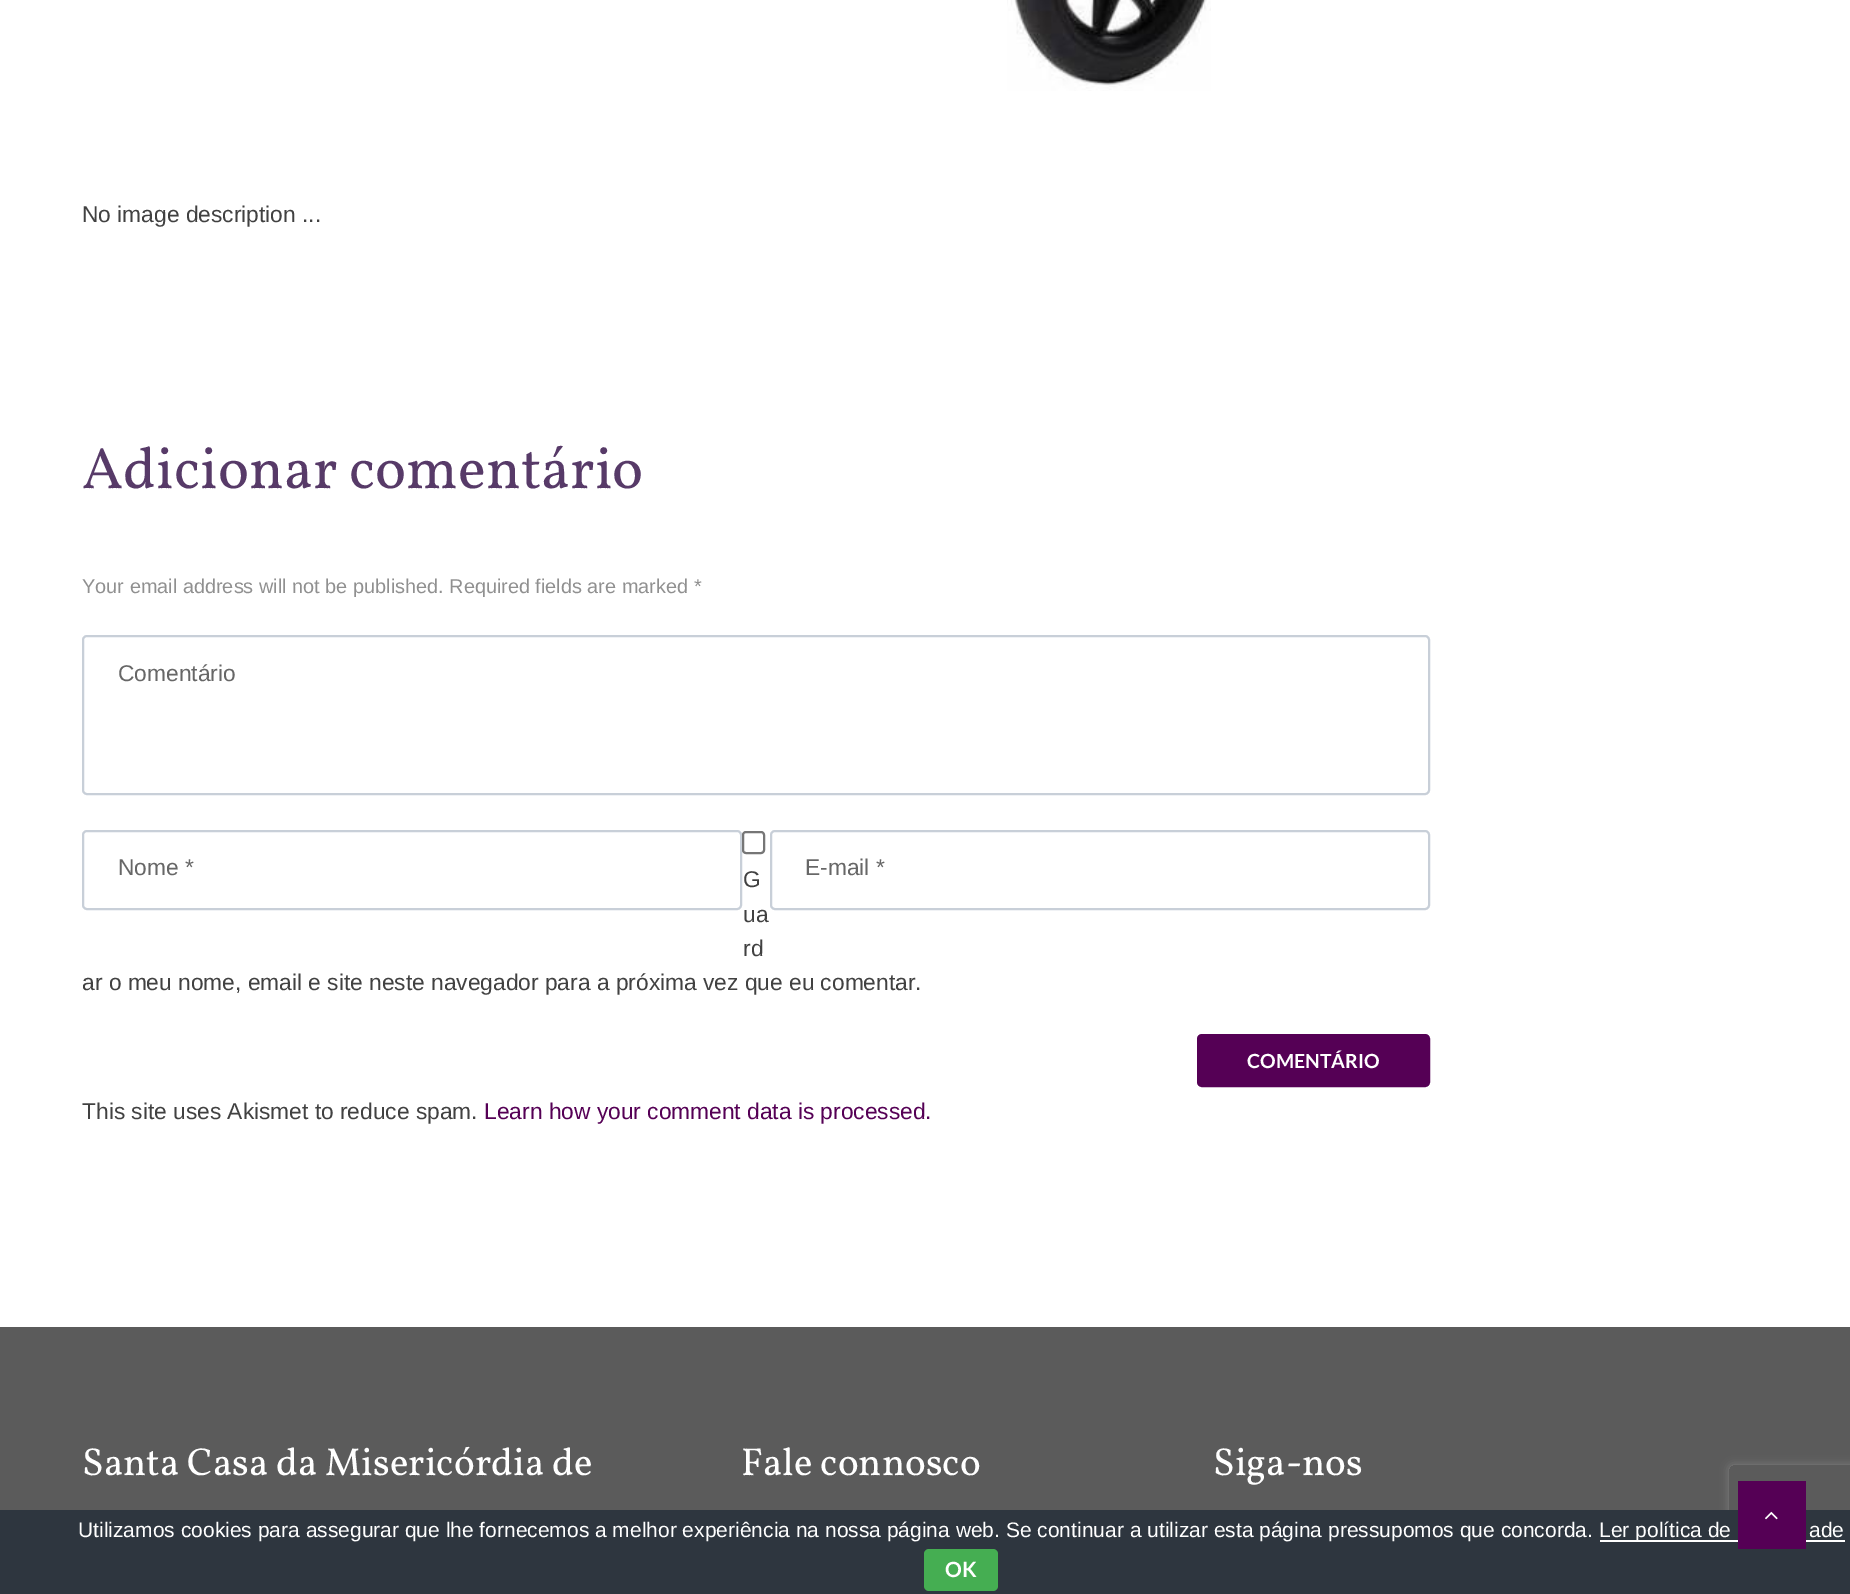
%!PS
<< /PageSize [1850 1594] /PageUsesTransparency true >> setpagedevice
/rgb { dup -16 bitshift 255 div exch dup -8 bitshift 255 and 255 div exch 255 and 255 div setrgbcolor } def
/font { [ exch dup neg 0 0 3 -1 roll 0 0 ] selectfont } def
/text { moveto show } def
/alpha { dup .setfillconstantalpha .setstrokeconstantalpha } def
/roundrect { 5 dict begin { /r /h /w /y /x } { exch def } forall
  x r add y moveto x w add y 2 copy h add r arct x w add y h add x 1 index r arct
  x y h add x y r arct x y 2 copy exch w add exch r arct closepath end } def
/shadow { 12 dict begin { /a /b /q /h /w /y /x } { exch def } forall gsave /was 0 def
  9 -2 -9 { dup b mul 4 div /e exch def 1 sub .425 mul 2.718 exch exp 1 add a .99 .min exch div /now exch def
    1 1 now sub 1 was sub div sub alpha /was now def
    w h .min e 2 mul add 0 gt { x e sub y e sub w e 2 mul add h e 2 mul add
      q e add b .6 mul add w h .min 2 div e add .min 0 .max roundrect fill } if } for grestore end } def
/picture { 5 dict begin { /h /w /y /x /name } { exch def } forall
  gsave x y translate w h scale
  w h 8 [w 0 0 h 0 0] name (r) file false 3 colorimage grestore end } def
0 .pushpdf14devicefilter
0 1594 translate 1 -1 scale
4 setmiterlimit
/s1 { /LiberationSans-Regular 22.75 font 16#414141 rgb } def
/s2 { /Vollkorn-Regular 58.5 font 16#573A68 rgb } def
/s3 { /LiberationSans-Regular 19.9 font 16#909090 rgb } def
/s4 { /LiberationSans-Regular 22.75 font 16#676767 rgb } def
/s5 { /Lato-Bold 19.5 font 16#FFFFFF rgb } def
/s6 { /LiberationSans-Regular 22.75 font 16#550055 rgb } def
/s7 { /Vollkorn-Regular 39 font 16#FFFFFF rgb } def
/s8 { /LiberationSans-Regular 21 font 16#FFFFFF rgb } def
/s9 { /Lato-Bold 21 font 16#FFFFFF rgb } def
16#FFFFFF rgb
0 0 1850 1594 rectfill
(pic1.raw) 1007 0 204 91 picture
s1
(No image description ...) 82 222 text
s2
(Adicionar comentário) 82 488 text
s3
(Your email address will not be published. Required fields are marked *) 82 593 text
16#C8CFD8 rgb
2 setlinewidth
83 636 1346 158 4 roundrect stroke
s4
(Comentário) 118 681 text
16#C8CFD8 rgb
83 831 658 78 4 roundrect stroke
s4
(Nome *) 118 875 text
16#C8CFD8 rgb
771 831 658 78 4 roundrect stroke
s4
(E-mail *) 805 875 text
16#767676 rgb
743 832 21 21 3 roundrect stroke
s1
(G) 743 887 text
(ua) 743 922 text
(rd) 743 956 text
(ar o meu nome, email e site neste navegador para a próxima vez que eu comentar.) 82 990 text
16#550055 rgb
1199 1036 229 49 3 roundrect gsave fill grestore
4 setlinewidth
stroke
s5
(COMENTÁRIO) 1247 1068 text
s1
(This site uses Akismet to reduce spam.) 82 1119 text
s6
(Learn how your comment data is processed.) 484 1119 text
16#5B5B5B rgb
0 1327 1850 183 rectfill
s7
(Santa Casa da Misericórdia de) 82 1475 text
(Fale connosco) 741 1475 text
(Siga-nos) 1213 1475 text
gsave
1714 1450 moveto 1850 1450 lineto 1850 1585 lineto 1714 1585 lineto closepath 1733 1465 moveto 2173 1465 lineto 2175 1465 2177 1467 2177 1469 curveto 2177 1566 lineto 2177 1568 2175 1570 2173 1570 curveto 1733 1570 lineto 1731 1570 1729 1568 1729 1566 curveto 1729 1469 lineto 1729 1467 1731 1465 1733 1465 curveto closepath eoclip newpath
16#808080 rgb
1729 1465 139 105 4 4.5 1 shadow
grestore
16#2E363F rgb
0 1510 1850 84 rectfill
16#FFFFFF rgb
1600 1540 245 2 rectfill
16#550055 rgb
1738 1481 68 68 rectfill
(pic2.raw) 1765 1511 13 9 picture
s8
(Utilizamos cookies para assegurar que lhe fornecemos a melhor experiência na nossa página web. Se continuar a utilizar esta página pressupomos que concorda.) 78 1537 text
(Ler política de) 1599 1537 text
(ade) 1809 1537 text
16#45AE52 rgb
924 1549 74 42 5 roundrect fill
s9
(OK) 945 1577 text
.poppdf14devicefilter showpage
